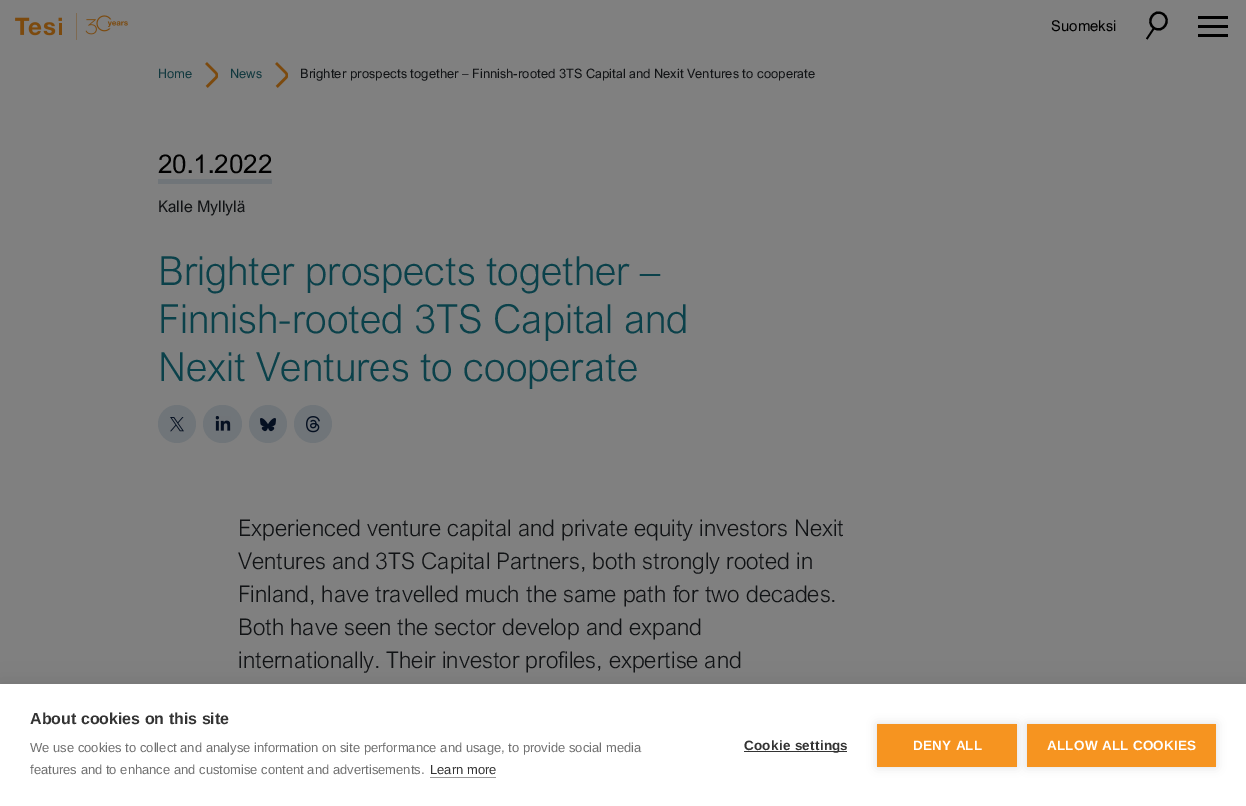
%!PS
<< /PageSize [1246 806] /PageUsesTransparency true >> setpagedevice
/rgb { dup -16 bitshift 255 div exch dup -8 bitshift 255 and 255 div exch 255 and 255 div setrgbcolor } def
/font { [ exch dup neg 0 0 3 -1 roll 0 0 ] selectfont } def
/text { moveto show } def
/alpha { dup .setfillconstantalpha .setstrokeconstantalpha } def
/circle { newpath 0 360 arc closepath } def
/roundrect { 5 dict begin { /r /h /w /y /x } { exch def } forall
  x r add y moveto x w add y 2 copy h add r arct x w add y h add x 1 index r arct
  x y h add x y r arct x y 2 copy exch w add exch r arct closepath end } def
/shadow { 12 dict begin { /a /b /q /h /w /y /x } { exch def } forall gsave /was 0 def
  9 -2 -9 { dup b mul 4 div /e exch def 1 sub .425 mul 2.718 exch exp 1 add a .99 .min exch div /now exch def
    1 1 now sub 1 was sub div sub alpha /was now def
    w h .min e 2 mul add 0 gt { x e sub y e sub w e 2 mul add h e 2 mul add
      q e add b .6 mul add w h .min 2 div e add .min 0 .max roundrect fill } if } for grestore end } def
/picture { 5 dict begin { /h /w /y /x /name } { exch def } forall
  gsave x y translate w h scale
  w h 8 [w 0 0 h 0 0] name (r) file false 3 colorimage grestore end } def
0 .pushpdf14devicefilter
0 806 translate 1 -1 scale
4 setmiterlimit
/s1 { /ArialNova-Regular 15 font 16#000000 rgb } def
/s2 { /ArialNova-Regular 13 font 16#12393F rgb } def
/s3 { /ArialNova-Regular 13 font 16#111315 rgb } def
/s4 { /ArialNova-Regular 26 font 16#000000 rgb } def
/s5 { /ArialNova-Regular 16 font 16#111315 rgb } def
/s6 { /ArialNova-Light 40 font 16#0B414A rgb } def
/s7 { /ArialNova-Light 23 font 16#111315 rgb } def
/s8 { /LiberationSans-Bold 16 font 16#333333 rgb } def
/s9 { /LiberationSans-Regular 13 font 16#707070 rgb } def
/s10 { /LiberationSans-Regular 13 font 16#333333 rgb } def
16#808080 rgb
0 0 1246 806 rectfill
(pic1.raw) 15 13 113 27 picture
s1
(Suomeksi) 1051 31 text
2.2 setlinewidth
1163 14 moveto 1172 20 1163 34 1154 28 curveto 1145 22 1154 8 1163 14 curveto closepath stroke
1153 28 moveto 1154.5 29 lineto 1147.5 39.5 lineto 1146 38.5 lineto closepath fill
1198 25 30 3 rectfill
1198 16 30 3 rectfill
1198 34 30 3 rectfill
s2
(Home) 158 78 text
(pic2.raw) 205 62 13 26 picture
(News) 230 78 text
(pic2.raw) 275 62 13 26 picture
s3
(Brighter prospects together – Finnish-rooted 3TS Capital and Nexit Ventures to cooperate) 300 78 text
16#707579 rgb
158 179 114 5 rectfill
s4
(20.1.2022) 158 173 text
s5
(Kalle Myllylä) 158 212 text
s6
(Brighter prospects together –) 158 285 text
(Finnish-rooted 3TS Capital and) 158 333 text
(Nexit Ventures to cooperate) 158 381 text
16#707579 rgb
177 424 19 circle fill
(pic3.raw) 170 417 14 15 picture
203 405 39 38 19 roundrect fill
(pic4.raw) 215 416 16 15 picture
268 424 19 circle fill
(pic5.raw) 260 418 16 14 picture
313 424 19 circle fill
(pic6.raw) 306 416 14 17 picture
s7
(Experienced venture capital and private equity investors Nexit) 238 536 text
(Ventures and 3TS Capital Partners, both strongly rooted in) 238 569 text
(Finland, have travelled much the same path for two decades.) 238 602 text
(Both have seen the sector develop and expand) 238 635 text
(internationally. Their investor profiles, expertise and) 238 668 text
16#000000 rgb
0 684 1246 122 0 10 0.1 shadow
16#FFFFFF rgb
0 684 1246 122 rectfill
s8
(About cookies on this site) 30 724 text
s9
(We use cookies to collect and analyse information on site performance and usage, to provide social media) 30 752 text
(features and to enhance and customise content and advertisements.) 30 774 text
s10
(Learn more) 430 774 text
16#999999 rgb
430 777 66 1 rectfill
16#333333 rgb
744 751 103 1 rectfill
/LiberationSans-Bold 13.5 font
744 750 moveto 0.25 0 (Cookie settings) ashow
16#000000 rgb
877 724 140 43 0 5 0.12 shadow
16#F69420 rgb
877 724 140 43 rectfill
16#FFFFFF rgb
913 750 moveto 0.25 0 (DENY ALL) ashow
16#000000 rgb
1027 724 189 43 0 5 0.12 shadow
16#F69420 rgb
1027 724 189 43 rectfill
16#FFFFFF rgb
1047 750 moveto 0.25 0 (ALLOW ALL COOKIES) ashow
.poppdf14devicefilter showpage
